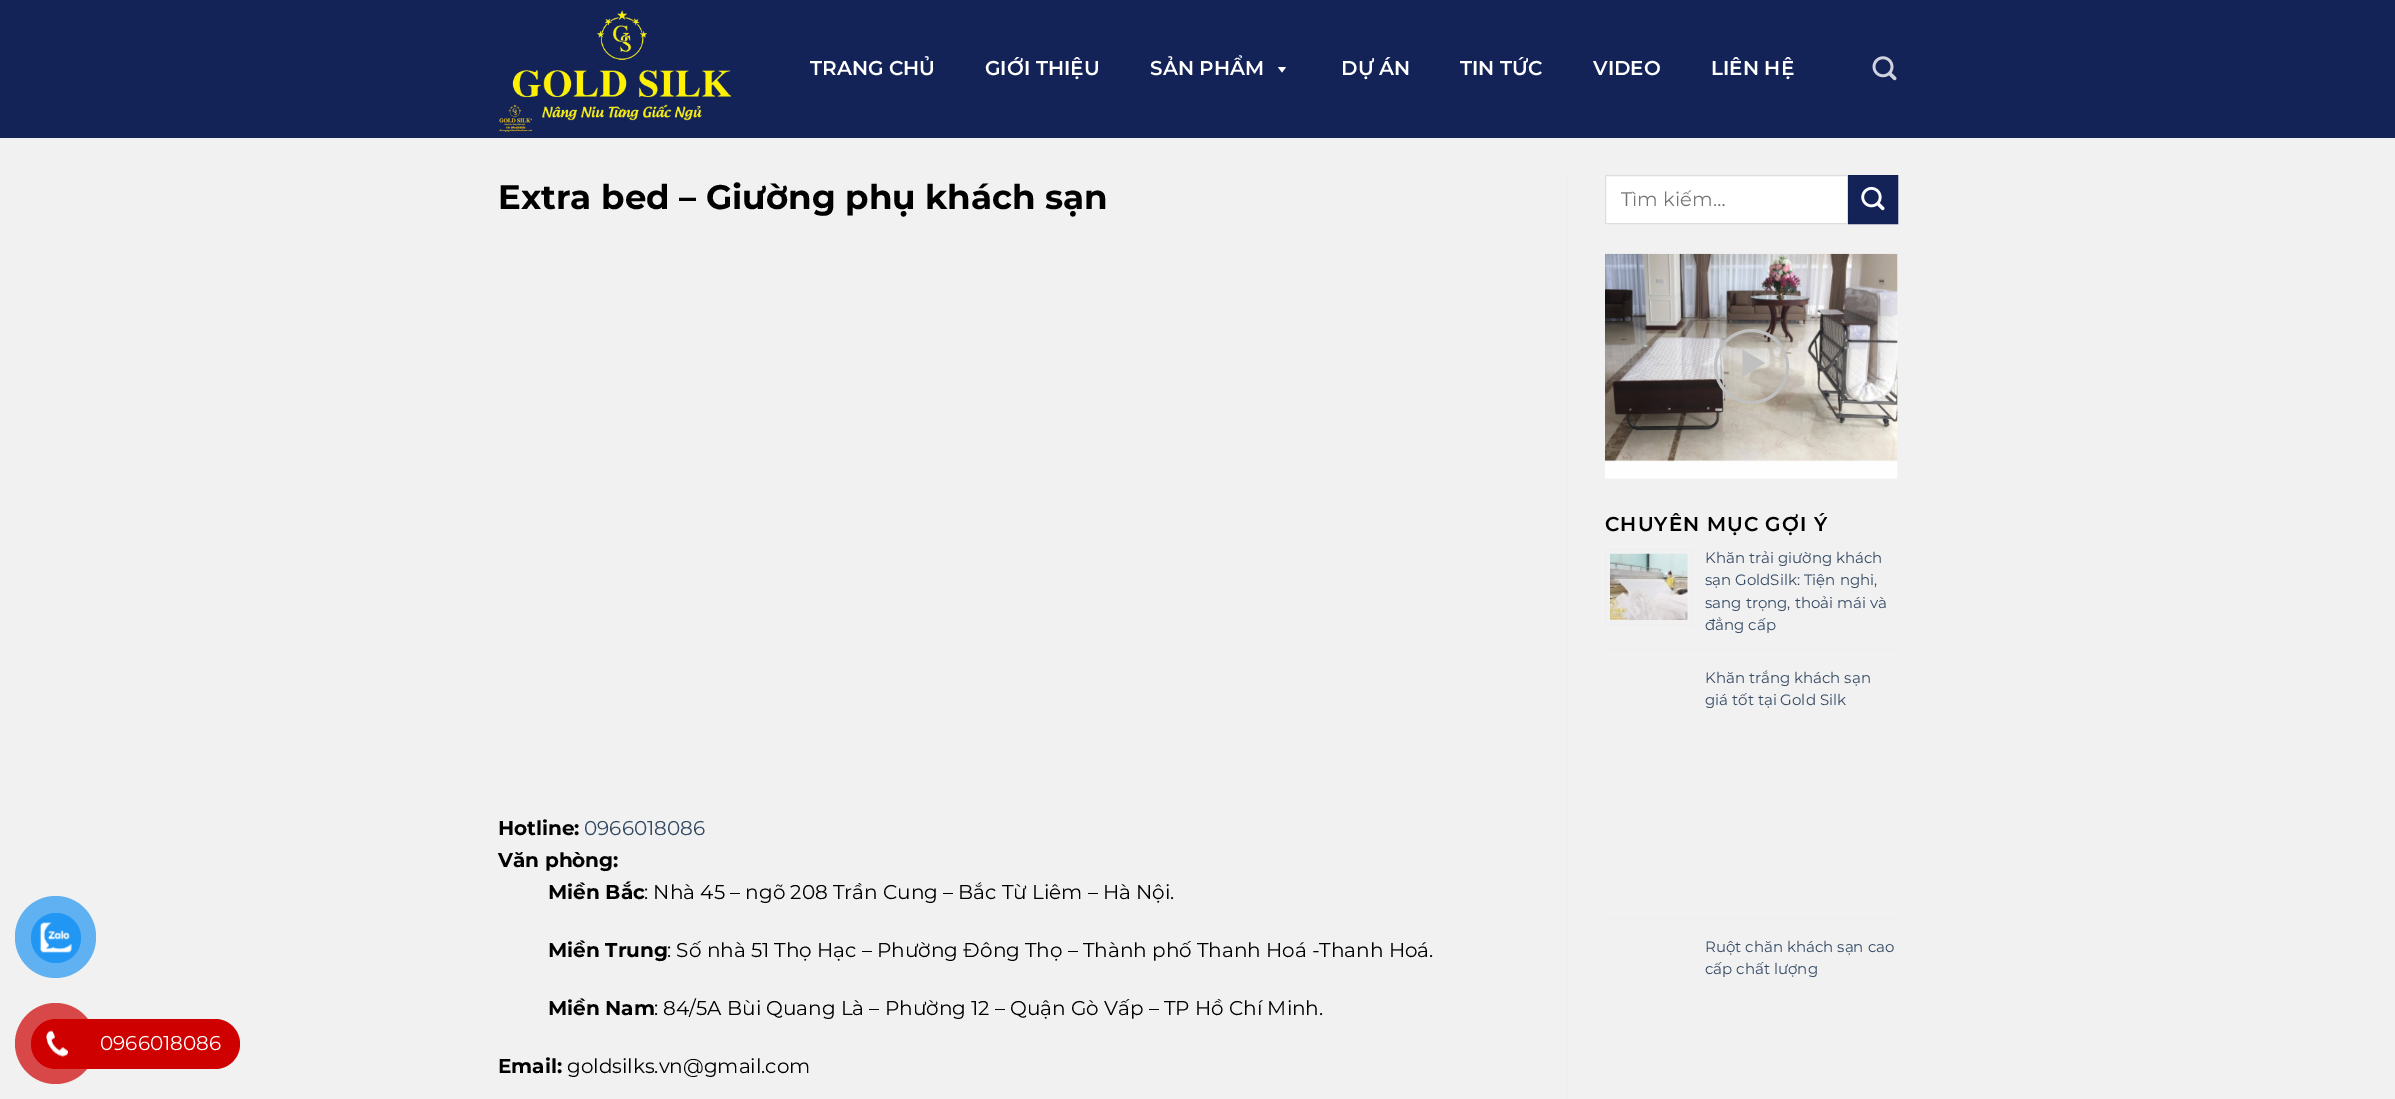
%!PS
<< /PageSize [2395 1099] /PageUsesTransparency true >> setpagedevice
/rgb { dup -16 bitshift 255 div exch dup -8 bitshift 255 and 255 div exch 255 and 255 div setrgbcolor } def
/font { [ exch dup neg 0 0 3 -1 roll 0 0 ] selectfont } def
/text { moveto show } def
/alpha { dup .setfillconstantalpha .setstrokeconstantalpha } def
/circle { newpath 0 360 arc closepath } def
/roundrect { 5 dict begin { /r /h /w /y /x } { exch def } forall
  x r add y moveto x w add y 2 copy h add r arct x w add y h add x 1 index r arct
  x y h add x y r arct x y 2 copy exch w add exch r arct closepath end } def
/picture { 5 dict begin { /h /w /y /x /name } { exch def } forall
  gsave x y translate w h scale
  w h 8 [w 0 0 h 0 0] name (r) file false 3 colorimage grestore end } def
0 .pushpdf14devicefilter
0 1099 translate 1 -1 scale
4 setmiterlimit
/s1 { /Montserrat-Regular 20 font 16#FFFFFF rgb } def
/s2 { /Montserrat-SemiBold 20 font 16#FFFFFF rgb } def
/s3 { /Montserrat-Bold 34 font 16#000000 rgb } def
/s4 { /Montserrat-Bold 20 font 16#000000 rgb } def
/s5 { /Montserrat-Regular 20 font 16#334862 rgb } def
/s6 { /Montserrat-Regular 20 font 16#000000 rgb } def
/s7 { /Montserrat-Regular 19.5 font 16#757575 rgb } def
/s8 { /Montserrat-Regular 15 font 16#334862 rgb } def
16#F1F1F1 rgb
0 0 2395 1099 rectfill
16#5FB1F2 rgb
15 896 81 82 40.5 roundrect fill
16#2196F3 rgb
56 938 25 circle fill
(pic1.raw) 39 922 33 31 picture
16#CE0000 rgb
38 1019 202 50 25 roundrect fill
0.7 alpha
55.5 1043.5 40.5 circle fill
1 alpha
56 1044 25 circle fill
(pic2.raw) 46 1030 22 27 picture
s1
(0966018086) 100 1050 text
16#132257 rgb
0 0 2395 138 rectfill
(pic3.raw) 499 10 233 122 picture
s2
(TRANG CHỦ) 810 75 text
(GIỚI THIỆU) 985 75 text
(SẢN PHẨM) 1150 75 text
1286 67 moveto 1282 72.5 lineto 1278 67 lineto closepath fill
(DỰ ÁN) 1341 75 text
(TIN TỨC) 1460 75 text
(VIDEO) 1593 75 text
(LIÊN HỆ) 1711 75 text
(pic4.raw) 1872 56 25 25 picture
s3
(Extra bed – Giường phụ khách sạn) 498 209 text
s4
(Hotline:) 498 835 text
s5
(0966018086) 584 835 text
s4
(Văn phòng:) 498 867 text
(Miền Bắc) 548 899 text
s6
(: Nhà 45 – ngõ 208 Trần Cung – Bắc Từ Liêm – Hà Nội.) 644 899 text
s4
(Miền Trung) 548 957 text
s6
(: Số nhà 51 Thọ Hạc – Phường Đông Thọ – Thành phố Thanh Hoá -Thanh Hoá.) 667 957 text
s4
(Miền Nam) 548 1015 text
s6
(: 84/5A Bùi Quang Là – Phường 12 – Quận Gò Vấp – TP Hồ Chí Minh.) 654 1015 text
s4
(Email:) 498 1073 text
s6
(goldsilks.vn@gmail.com) 567 1073 text
16#ECECEC rgb
1566 175 1 924 rectfill
16#FFFFFF rgb
1605.5 175.5 moveto 1847.5 175.5 lineto 1847.5 223.5 lineto 1605.5 223.5 lineto closepath gsave fill grestore
16#DDDDDD rgb
stroke
s7
(Tìm kiếm…) 1621 206 text
16#132257 rgb
1848.5 175.5 moveto 1897.5 175.5 lineto 1897.5 223.5 lineto 1848.5 223.5 lineto closepath gsave fill grestore
16#122053 rgb
stroke
(pic5.raw) 1861 186 24 25 picture
(pic6.raw) 1605 253 293 226 picture
16#C0C0C0 rgb
3 setlinewidth
1751.5 366.5 36 circle stroke
1742.5 349.5 moveto 1765 363 lineto 1742.5 376.5 lineto closepath fill
/Montserrat-SemiBold 20 font
16#000000 rgb
1605 531 moveto 1 0 (CHUYÊN MỤC GỢI Ý) ashow
16#EEEEEE rgb
1605 649 293 1 rectfill
1 setlinewidth
1605.5 549.5 87 75 rectstroke
(pic7.raw) 1610 553 78 67 picture
s8
(Khăn trải giường khách) 1705 563 text
(sạn GoldSilk: Tiện nghi,) 1705 585 text
(sang trọng, thoải mái và) 1705 608 text
(đẳng cấp) 1705 630 text
16#EEEEEE rgb
1605 918 293 1 rectfill
s8
(Khăn trắng khách sạn) 1705 683 text
(giá tốt tại Gold Silk) 1705 705 text
(Ruột chăn khách sạn cao) 1705 952 text
(cấp chất lượng) 1705 974 text
.poppdf14devicefilter showpage
